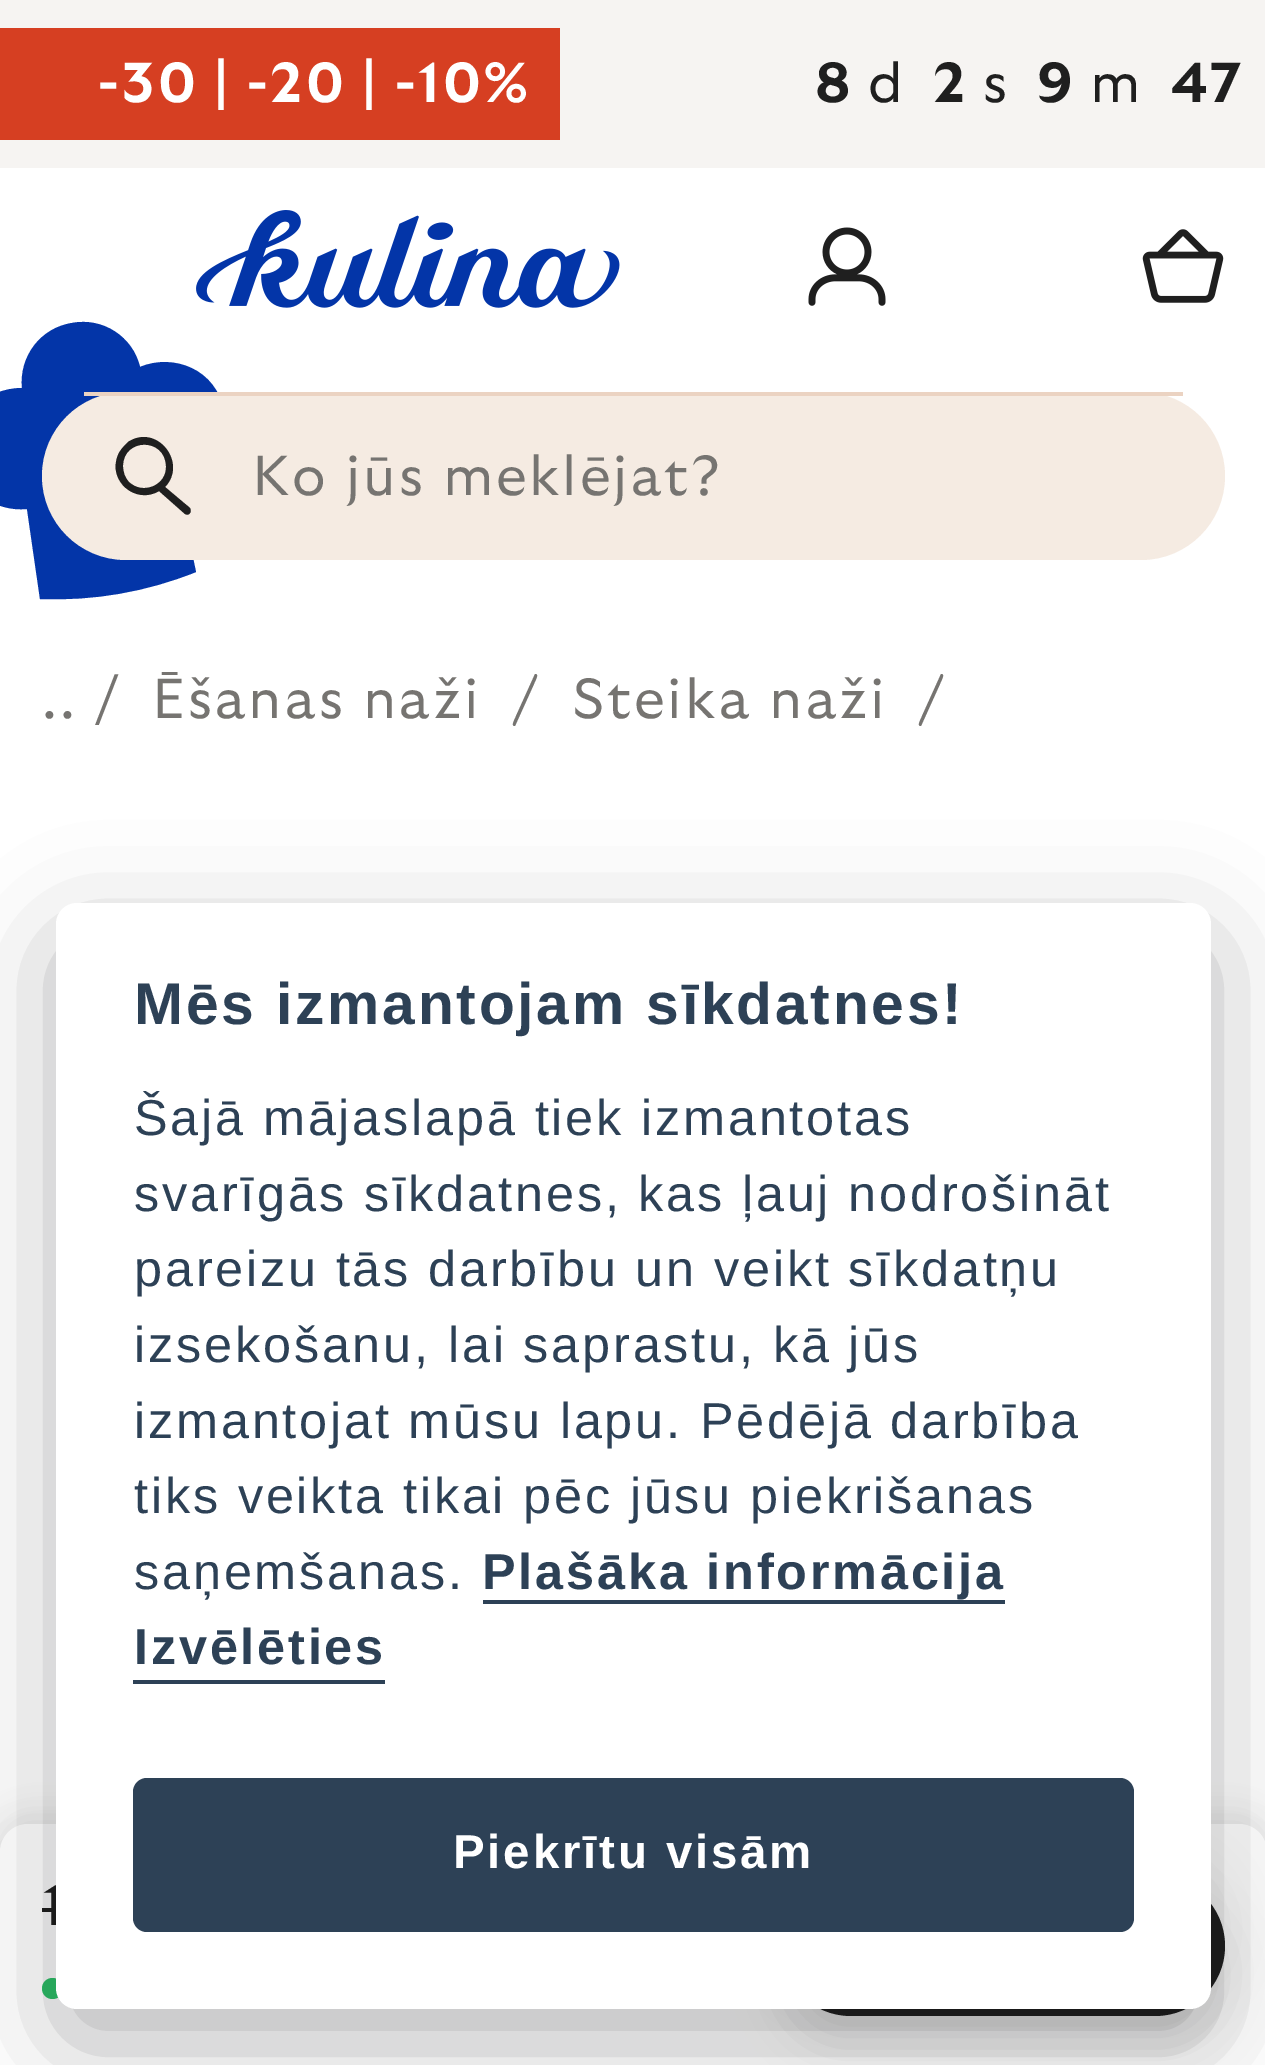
%!PS
<< /PageSize [1265 2065] /PageUsesTransparency true >> setpagedevice
/rgb { dup -16 bitshift 255 div exch dup -8 bitshift 255 and 255 div exch 255 and 255 div setrgbcolor } def
/font { [ exch dup neg 0 0 3 -1 roll 0 0 ] selectfont } def
/alpha { dup .setfillconstantalpha .setstrokeconstantalpha } def
/circle { newpath 0 360 arc closepath } def
/roundrect { 5 dict begin { /r /h /w /y /x } { exch def } forall
  x r add y moveto x w add y 2 copy h add r arct x w add y h add x 1 index r arct
  x y h add x y r arct x y 2 copy exch w add exch r arct closepath end } def
/shadow { 12 dict begin { /a /b /q /h /w /y /x } { exch def } forall gsave /was 0 def
  9 -2 -9 { dup b mul 4 div /e exch def 1 sub .425 mul 2.718 exch exp 1 add a .99 .min exch div /now exch def
    1 1 now sub 1 was sub div sub alpha /was now def
    w h .min e 2 mul add 0 gt { x e sub y e sub w e 2 mul add h e 2 mul add
      q e add b .6 mul add w h .min 2 div e add .min 0 .max roundrect fill } if } for grestore end } def
/picture { 5 dict begin { /h /w /y /x /name } { exch def } forall
  gsave x y translate w h scale
  w h 8 [w 0 0 h 0 0] name (r) file false 3 colorimage grestore end } def
0 .pushpdf14devicefilter
0 2065 translate 1 -1 scale
4 setmiterlimit
16#FFFFFF rgb
0 0 1265 2065 rectfill
16#F6F4F2 rgb
0 0 1265 168 rectfill
16#D63F22 rgb
0 28 560 112 rectfill
/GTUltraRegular-ExtraBold 56 font
16#FFFFFF rgb
98 102 moveto 2.8 0 (-30 | -20 | -10%) ashow
16#1F1F1F rgb
815 102 moveto 2.8 0 (8) ashow
/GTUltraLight-ExtraLight 56 font
868 102 moveto 2.8 0 (d) ashow
/GTUltraRegular-ExtraBold 56 font
933 102 moveto 2.8 0 (2) ashow
/GTUltraLight-ExtraLight 56 font
983 102 moveto 2.8 0 (s) ashow
/GTUltraRegular-ExtraBold 56 font
1037 102 moveto 2.8 0 (9) ashow
/GTUltraLight-ExtraLight 56 font
1090 102 moveto 2.8 0 (m) ashow
/GTUltraRegular-ExtraBold 56 font
1171 102 moveto 2.8 0 (47) ashow
(pic1.raw) 196 210 424 98 picture
(pic2.raw) 808 227 78 79 picture
(pic3.raw) 1142 229 82 74 picture
16#0335A8 rgb
224 412 moveto 217 369 173 353 140 367 curveto 133 337 103 317 72 323 curveto 40 328 19 357 22 388 curveto -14 388 -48 417 -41 459 curveto -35 490 -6 512 27 509 curveto 40 599 lineto 94 601 146 592 196 572 curveto 177 482 lineto 209 475 230 445 224 412 curveto closepath fill
16#F5EBE2 rgb
42 392 1183 168 84 roundrect fill
16#1F1F1F rgb
159 491 moveto 185 514 lineto 187 515 189 515 190 513 curveto 191 512 191 510 190 508 curveto 165 487 lineto 188 463 157 423 128 442 curveto 124 446 120 450 118 455 curveto 107 481 136 505 159 491 curveto closepath 123 466 moveto 123 438 165 437 166 466 curveto 167 486 142 495 129 482 curveto 125 478 123 472 123 466 curveto closepath fill
16#EBD3C2 rgb
84 392 1099 4 rectfill
/GTUltraLight-ExtraLight 56 font
16#767471 rgb
252 495 moveto 2.8 0 (Ko jūs meklējat?) ashow
42 718 moveto 2.8 0 (.. /) ashow
152 718 moveto 2.8 0 (Ēšanas naži) ashow
536 674 moveto 539 675 535 681 534 684 curveto 515 726 lineto 514 726 lineto 511 725 515 719 516 716 curveto 535 674 lineto closepath eofill
572 718 moveto 2.8 0 (Steika naži) ashow
942 674 moveto 945 675 941 681 940 684 curveto 921 726 lineto 920 726 lineto 917 725 921 719 922 716 curveto 941 674 lineto closepath eofill
16#171717 rgb
0 1817 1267 241 28 14 0.08 shadow
16#3C3C3C rgb
0 1845 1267 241 28 28 0.16 shadow
16#FFFFFF rgb
28 1824 moveto 1239 1824 lineto 1254.5 1824 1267 1836.5 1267 1852 curveto 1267 2065 lineto 0 2065 lineto 0 1852 lineto 0 1836.5 12.5 1824 28 1824 curveto closepath fill
16#1F1F1F rgb
42 1925 moveto 2.8 0 (1) ashow
42 1908 14 4 rectfill
16#2DC269 rgb
52.5 1988.5 10.5 circle fill
16#EEEEEE rgb
781 1859 444 140 70 23 1 shadow
16#CCCCCC rgb
781 1904 444 140 70 23 0.6 shadow
16#1F1F1F rgb
781 1876 444 140 70 roundrect fill
16#020203 rgb
56 938 1155 1106 21 52.5 0.28 shadow
16#FFFFFF rgb
56 903 1155 1106 21 roundrect fill
/LiberationSans-Bold 58.75 font
16#2D4156 rgb
134 1024 moveto 2.8 0 (Mēs izmantojam sīkdatnes!) ashow
/LiberationSans-Regular 50.4 font
134 1135 moveto 2.8 0 (Šajā mājaslapā tiek izmantotas) ashow
134 1211 moveto 2.8 0 (svarīgās sīkdatnes, kas ļauj nodrošināt) ashow
134 1286 moveto 2.8 0 (pareizu tās darbību un veikt sīkdatņu) ashow
134 1362 moveto 2.8 0 (izsekošanu, lai saprastu, kā jūs) ashow
134 1438 moveto 2.8 0 (izmantojat mūsu lapu. Pēdējā darbība) ashow
134 1513 moveto 2.8 0 (tiks veikta tikai pēc jūsu piekrišanas) ashow
134 1589 moveto 2.8 0 (saņemšanas.) ashow
/LiberationSans-Bold 50.4 font
482 1589 moveto 2.8 0 (Plašāka informācija) ashow
483 1600 522 4 rectfill
134 1664 moveto 2.8 0 (Izvēlēties) ashow
133 1680 252 4 rectfill
133 1778 1001 154 14 roundrect fill
/LiberationSans-Bold 47.5 font
16#FFFFFF rgb
453 1868 moveto 2.8 0 (Piekrītu visām) ashow
.poppdf14devicefilter showpage
